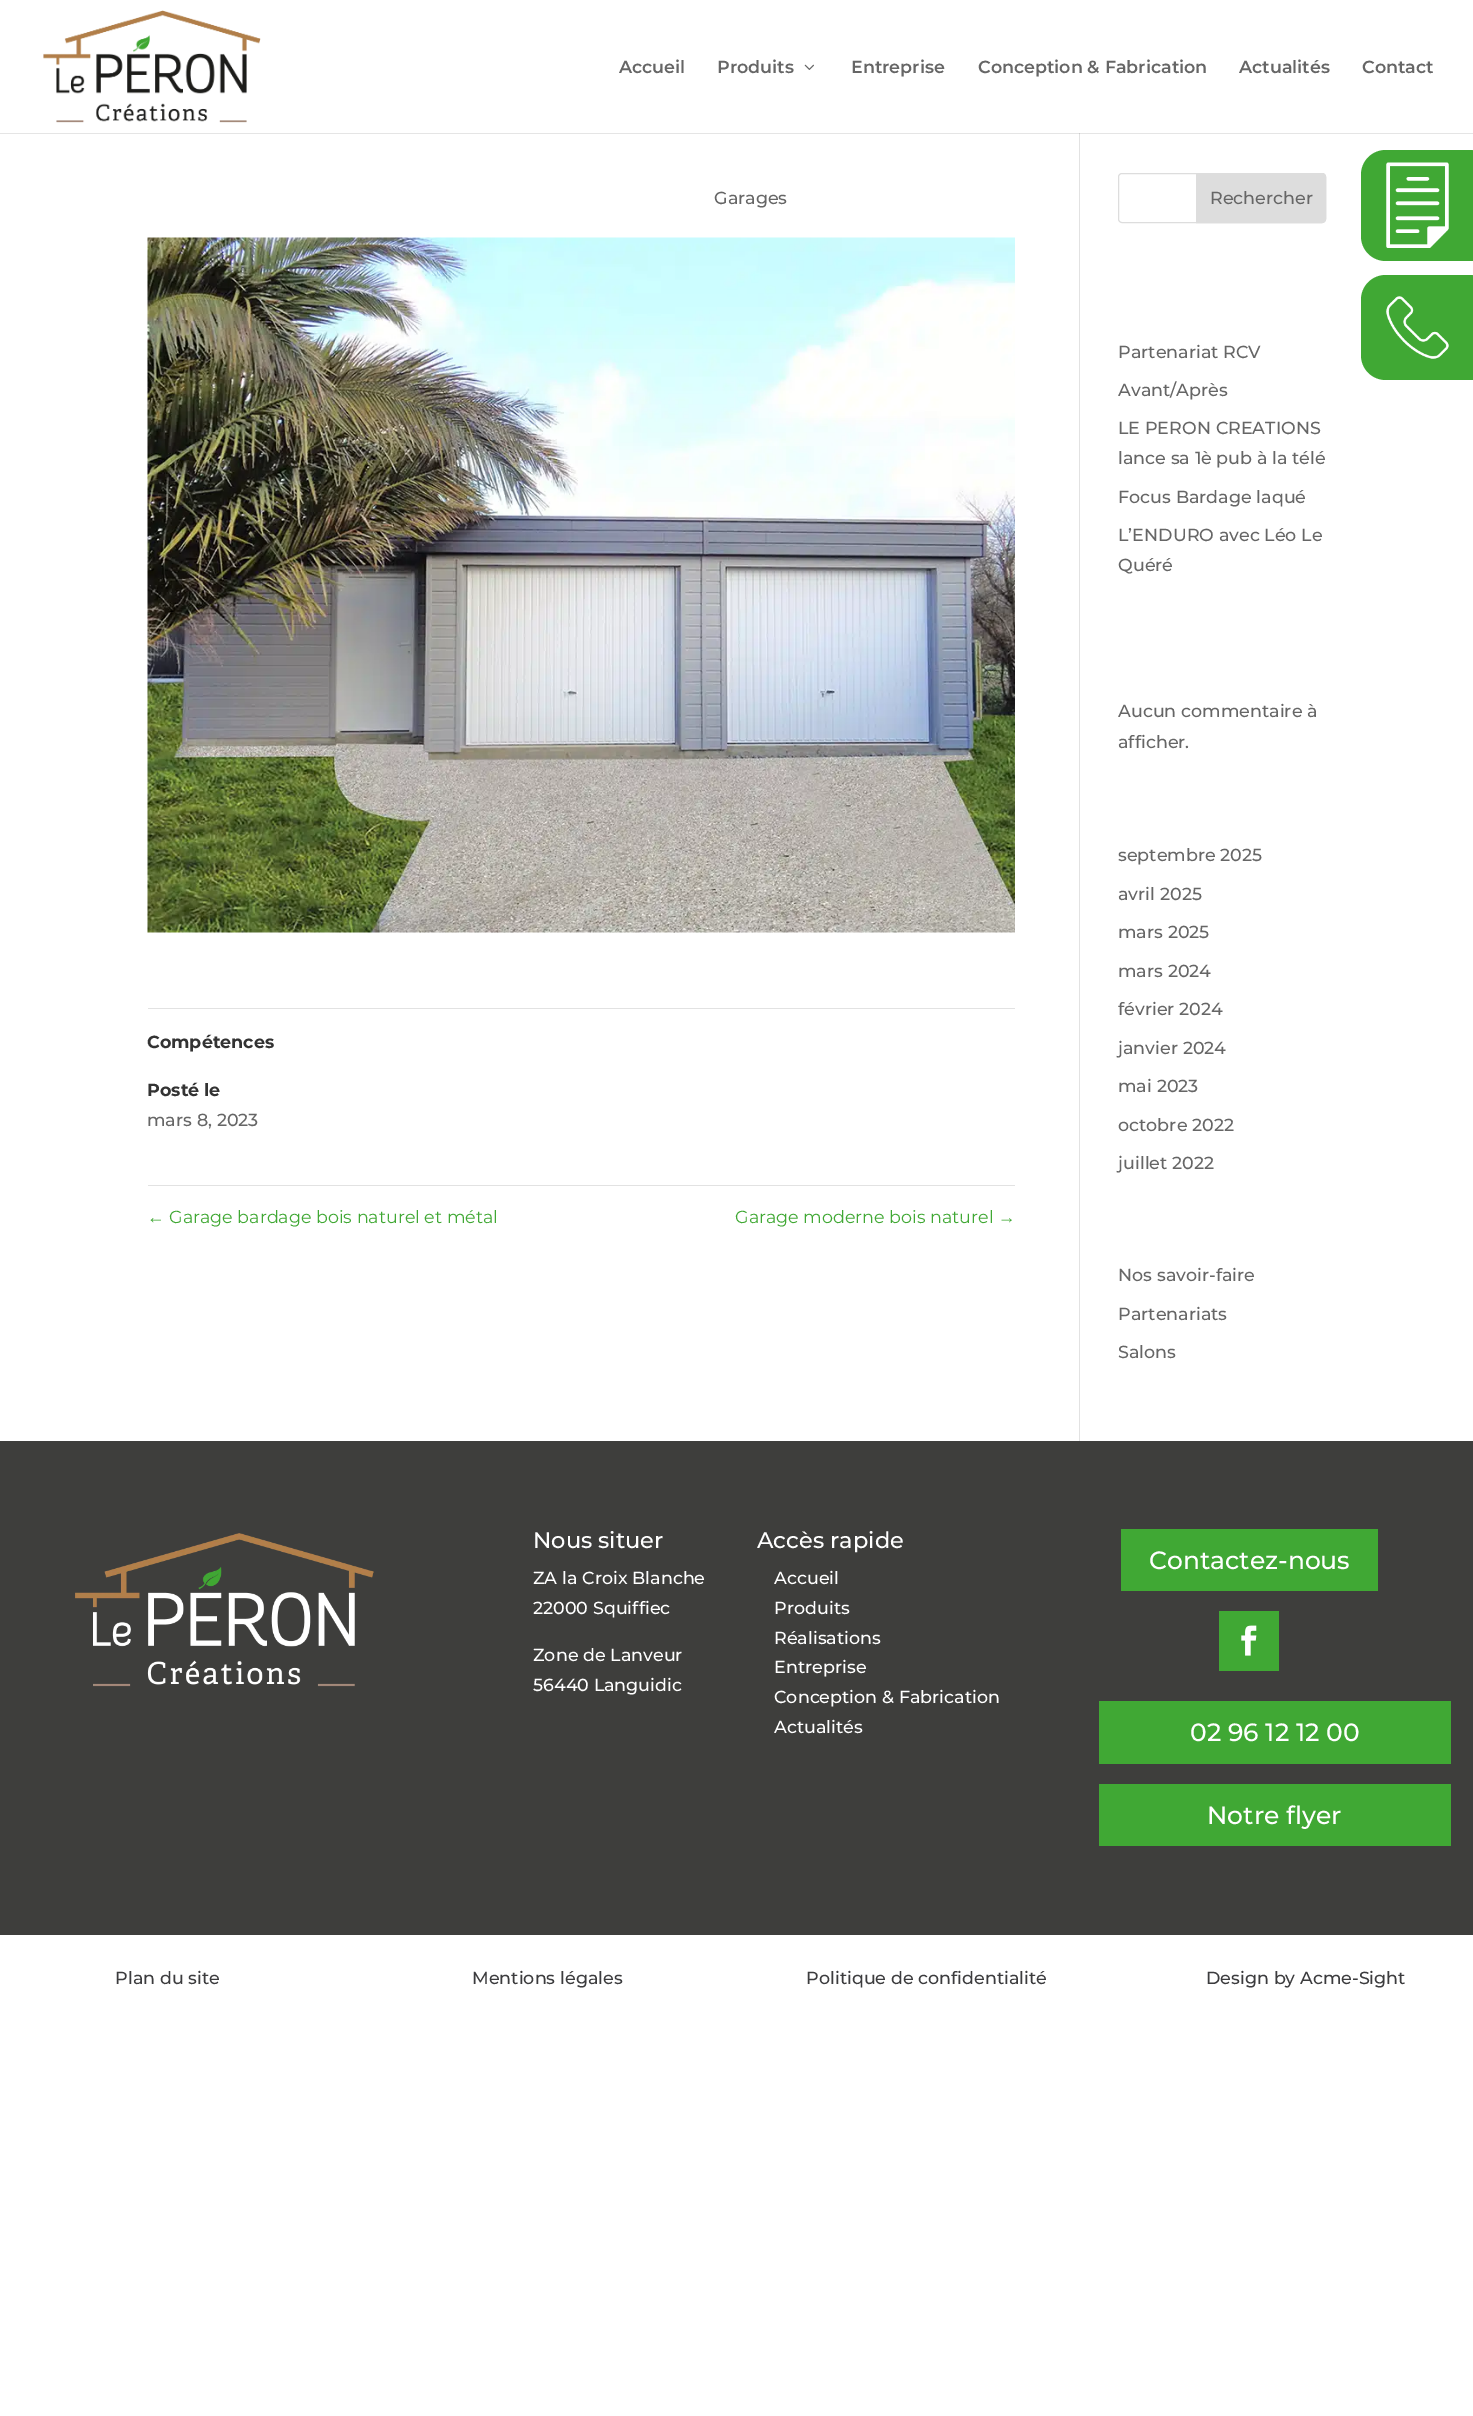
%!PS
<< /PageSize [1473 2416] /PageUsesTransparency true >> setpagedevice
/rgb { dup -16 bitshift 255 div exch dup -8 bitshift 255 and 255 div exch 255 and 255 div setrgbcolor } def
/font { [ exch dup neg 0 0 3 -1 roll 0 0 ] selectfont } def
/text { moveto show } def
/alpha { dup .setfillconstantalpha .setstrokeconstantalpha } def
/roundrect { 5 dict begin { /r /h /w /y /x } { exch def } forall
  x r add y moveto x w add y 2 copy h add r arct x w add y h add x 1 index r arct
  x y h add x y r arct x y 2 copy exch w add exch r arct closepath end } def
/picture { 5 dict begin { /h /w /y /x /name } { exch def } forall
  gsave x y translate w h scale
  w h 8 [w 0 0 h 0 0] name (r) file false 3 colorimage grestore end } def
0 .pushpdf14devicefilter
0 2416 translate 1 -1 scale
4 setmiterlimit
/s1 { /Montserrat-SemiBold 17.5 font 16#666666 rgb } def
/s2 { /Montserrat-Medium 17.5 font 16#666666 rgb } def
/s3 { /Montserrat-Bold 17.5 font 16#333333 rgb } def
/s4 { /LiberationSans-Regular 17.5 font 16#40A834 rgb } def
/s5 { /Montserrat-Regular 17.5 font 16#40A834 rgb } def
/s6 { /Montserrat-Medium 22.5 font 16#FFFFFF rgb } def
/s7 { /Montserrat-Medium 17.5 font 16#FFFFFF rgb } def
/s8 { /Montserrat-Medium 25 font 16#FFFFFF rgb } def
/s9 { /Montserrat-Medium 17.5 font 16#3C3C3E rgb } def
16#FFFFFF rgb
0 0 1473 2416 rectfill
16#E2E2E2 rgb
1079 133 1 1308 rectfill
0.1 alpha
16#000000 rgb
0 132 moveto 0 134 lineto 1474 134 lineto 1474 1 lineto 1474 132 lineto closepath fill
1 alpha
16#FFFFFF rgb
0 132 1473 1 rectfill
(pic1.raw) 43 10 218 113 picture
s1
(Accueil) 619 73 text
(Produits) 717 73 text
(pic2.raw) 804 64 10 6 picture
(Entreprise) 851 73 text
(Conception & Fabrication) 978 73 text
(Actualités) 1239 73 text
(Contact) 1362 73 text
s2
(Garages) 714 204 text
(pic3.raw) 147 237 868 696 picture
16#E2E2E2 rgb
148 1008 867 1 rectfill
148 1185 867 1 rectfill
s3
(Compétences) 147 1048 text
(Posté le) 147 1096 text
s2
(mars 8, 2023) 147 1126 text
s4
(←) 147 1223 text
s5
(Garage bardage bois naturel et métal) 169 1223 text
(Garage moderne bois naturel) 735 1223 text
s4
(→) 998 1223 text
16#DDDDDD rgb
1118.5 173.5 207 49 3.5 roundrect stroke
1196.5 173.5 moveto 1322 173.5 lineto 1324 173.5 1325.5 175 1325.5 177 curveto 1325.5 219 lineto 1325.5 221 1324 222.5 1322 222.5 curveto 1196.5 222.5 lineto closepath gsave fill grestore
stroke
s2
(Rechercher) 1210 204 text
(Partenariat RCV) 1118 358 text
(Avant/Après) 1118 396 text
(LE PERON CREATIONS) 1118 434 text
(lance sa 1è pub à la télé) 1118 464 text
(Focus Bardage laqué) 1118 503 text
(L’ENDURO avec Léo Le) 1118 541 text
(Quéré) 1118 571 text
(Aucun commentaire à) 1118 717 text
(afficher.) 1118 748 text
(septembre 2025) 1118 861 text
(avril 2025) 1118 900 text
(mars 2025) 1118 938 text
(mars 2024) 1118 977 text
(février 2024) 1118 1015 text
(janvier 2024) 1118 1054 text
(mai 2023) 1118 1092 text
(octobre 2022) 1118 1131 text
(juillet 2022) 1118 1169 text
(Nos savoir-faire) 1118 1281 text
(Partenariats) 1118 1320 text
(Salons) 1118 1358 text
16#40A834 rgb
1386 150 moveto 1471.5 150 lineto 1473 150 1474 151 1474 152.5 curveto 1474 261 lineto 1386 261 lineto 1372 261 1361 250 1361 236 curveto 1361 175 lineto 1361 161 1372 150 1386 150 curveto closepath fill
(pic4.raw) 1386 162 63 86 picture
1386 275 moveto 1471.5 275 lineto 1473 275 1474 276 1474 277.5 curveto 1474 380 lineto 1386 380 lineto 1372 380 1361 369 1361 355 curveto 1361 300 lineto 1361 286 1372 275 1386 275 curveto closepath fill
(pic5.raw) 1386 296 63 63 picture
16#3E3E3C rgb
0 1441 1473 494 rectfill
(pic6.raw) 75 1533 299 154 picture
s6
(Nous situer) 533 1548 text
s7
(ZA la Croix Blanche) 533 1584 text
(22000 Squiffiec) 533 1614 text
(Zone de Lanveur) 533 1661 text
(56440 Languidic) 533 1691 text
s6
(Accès rapide) 757 1548 text
s7
(Accueil) 774 1584 text
(Produits) 774 1614 text
(Réalisations) 774 1644 text
(Entreprise) 774 1673 text
(Conception & Fabrication) 774 1703 text
(Actualités) 774 1733 text
16#40A834 rgb
1121 1529 257 62 rectfill
s8
(Contactez-nous) 1149 1569 text
16#40A834 rgb
1219 1611 60 60 rectfill
(pic7.raw) 1241 1625 16 31 picture
1099 1701 352 63 rectfill
s8
(02 96 12 12 00) 1190 1741 text
16#40A834 rgb
1099 1784 352 62 rectfill
s8
(Notre flyer) 1207 1824 text
s9
(Plan du site) 115 1984 text
(Mentions légales) 472 1984 text
(Politique de confidentialité) 806 1984 text
(Design by Acme-Sight) 1206 1984 text
.poppdf14devicefilter showpage
